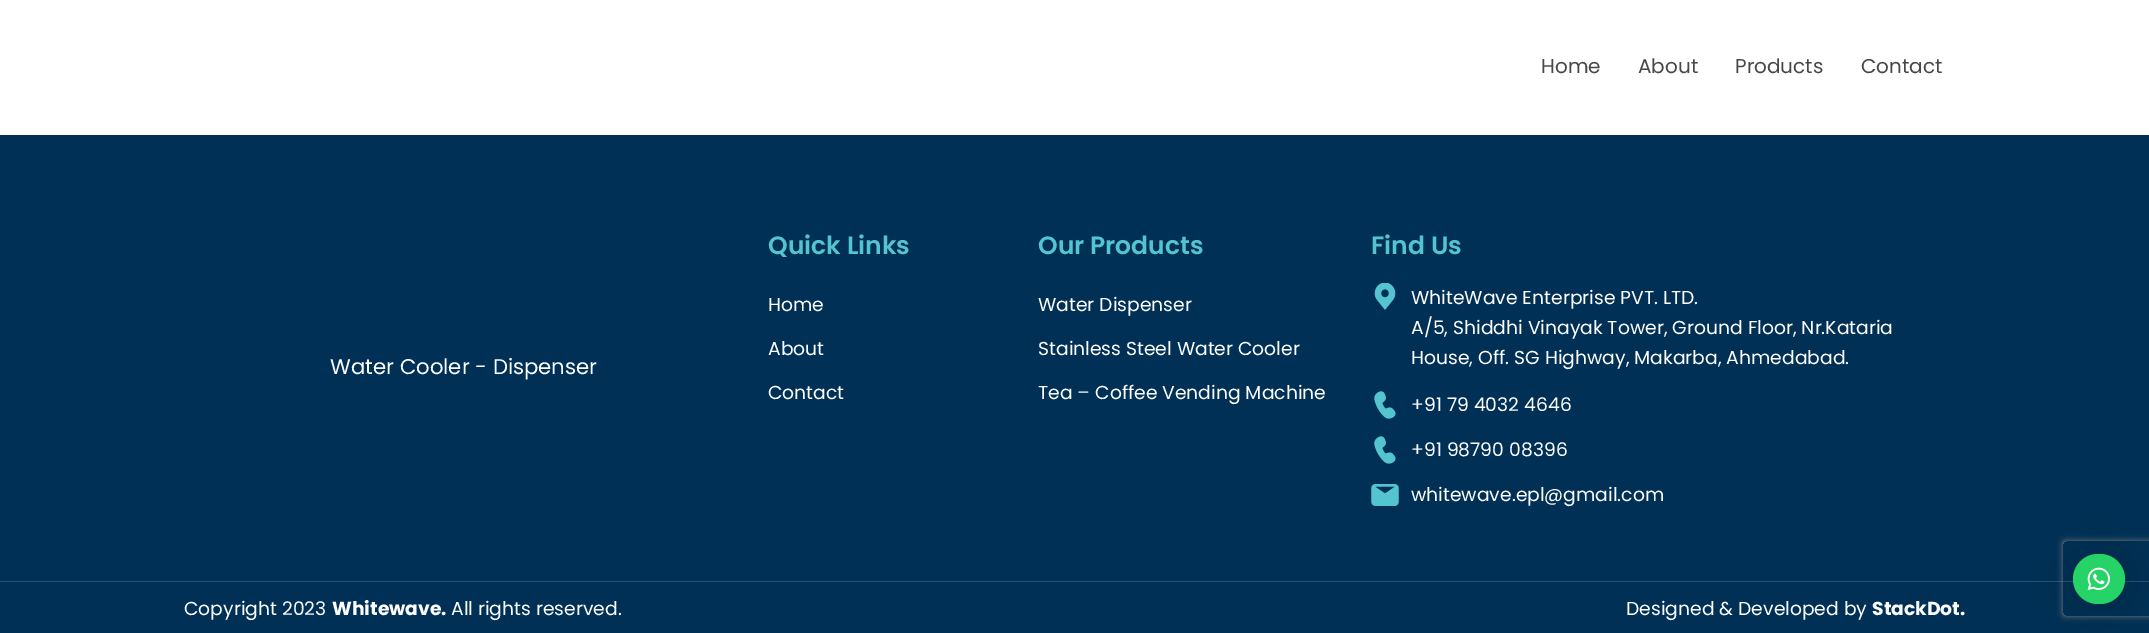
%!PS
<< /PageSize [2149 633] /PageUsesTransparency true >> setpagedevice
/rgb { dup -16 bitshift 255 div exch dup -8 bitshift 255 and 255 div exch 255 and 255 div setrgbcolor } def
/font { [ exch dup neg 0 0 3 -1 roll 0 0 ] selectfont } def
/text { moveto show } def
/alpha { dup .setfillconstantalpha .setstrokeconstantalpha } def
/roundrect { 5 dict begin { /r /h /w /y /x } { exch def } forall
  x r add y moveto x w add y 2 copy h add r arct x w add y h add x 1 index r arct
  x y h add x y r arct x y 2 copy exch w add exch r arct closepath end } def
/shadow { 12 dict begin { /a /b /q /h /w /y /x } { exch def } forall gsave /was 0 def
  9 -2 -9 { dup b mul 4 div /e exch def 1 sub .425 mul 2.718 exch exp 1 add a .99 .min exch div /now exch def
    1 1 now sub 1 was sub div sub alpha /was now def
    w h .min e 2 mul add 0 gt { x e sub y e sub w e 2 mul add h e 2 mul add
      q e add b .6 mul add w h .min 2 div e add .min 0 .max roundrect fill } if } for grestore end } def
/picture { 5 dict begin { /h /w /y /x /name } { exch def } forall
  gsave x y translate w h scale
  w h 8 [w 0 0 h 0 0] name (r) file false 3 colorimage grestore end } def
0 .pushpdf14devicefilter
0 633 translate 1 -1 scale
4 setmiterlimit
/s1 { /Poppins-Regular 20 font 16#474747 rgb } def
/s2 { /Poppins-Regular 21.25 font 16#FFFFFF rgb } def
/s3 { /Poppins-SemiBold 25 font 16#54C5D0 rgb } def
/s4 { /Poppins-Regular 18.75 font 16#FFFFFF rgb } def
/s5 { /Poppins-Bold 18.75 font 16#FFFFFF rgb } def
16#FFFFFF rgb
0 0 2149 633 rectfill
s1
(Home) 1541 73 text
(About) 1638 73 text
(Products) 1735 73 text
(Contact) 1861 73 text
16#003055 rgb
0 135 2149 498 rectfill
s2
(Water Cooler - Dispenser) 330 374 text
s3
(Quick Links) 768 254 text
s4
(Home) 768 311 text
(About) 768 355 text
(Contact) 768 399 text
s3
(Our Products) 1038 254 text
s4
(Water Dispenser) 1038 311 text
(Stainless Steel Water Cooler) 1038 355 text
(Tea – Coffee Vending Machine) 1038 399 text
s3
(Find Us) 1371 254 text
(pic1.raw) 1374 283 22 27 picture
s4
(WhiteWave Enterprise PVT. LTD.) 1411 304 text
(A/5, Shiddhi Vinayak Tower, Ground Floor, Nr.Kataria) 1411 334 text
(House, Off. SG Highway, Makarba, Ahmedabad.) 1411 364 text
(pic2.raw) 1374 391 22 28 picture
(+91 79 4032 4646) 1411 411 text
(pic2.raw) 1374 436 22 28 picture
(+91 98790 08396) 1411 456 text
(pic3.raw) 1371 484 28 22 picture
(whitewave.epl@gmail.com) 1411 501 text
16#295170 rgb
0 581 2149 1 rectfill
s4
(Copyright 2023) 184 615 text
s5
(Whitewave.) 332 615 text
s4
(All rights reserved.) 451 615 text
(Designed & Developed by) 1626 615 text
s5
(StackDot.) 1872 615 text
16#000000 rgb
2073 556 52 50 25 20 0.16 shadow
gsave
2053 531 moveto 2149 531 lineto 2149 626 lineto 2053 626 lineto closepath 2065.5 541 moveto 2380.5 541 lineto 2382 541 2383 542 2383 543.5 curveto 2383 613.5 lineto 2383 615 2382 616 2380.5 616 curveto 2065.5 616 lineto 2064 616 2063 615 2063 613.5 curveto 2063 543.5 lineto 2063 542 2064 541 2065.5 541 curveto closepath eoclip newpath
16#808080 rgb
2063 541 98 75 2.5 3 1 shadow
grestore
16#25D366 rgb
2073 554 52 50 25 roundrect fill
(pic4.raw) 2087 567 23 24 picture
.poppdf14devicefilter showpage
